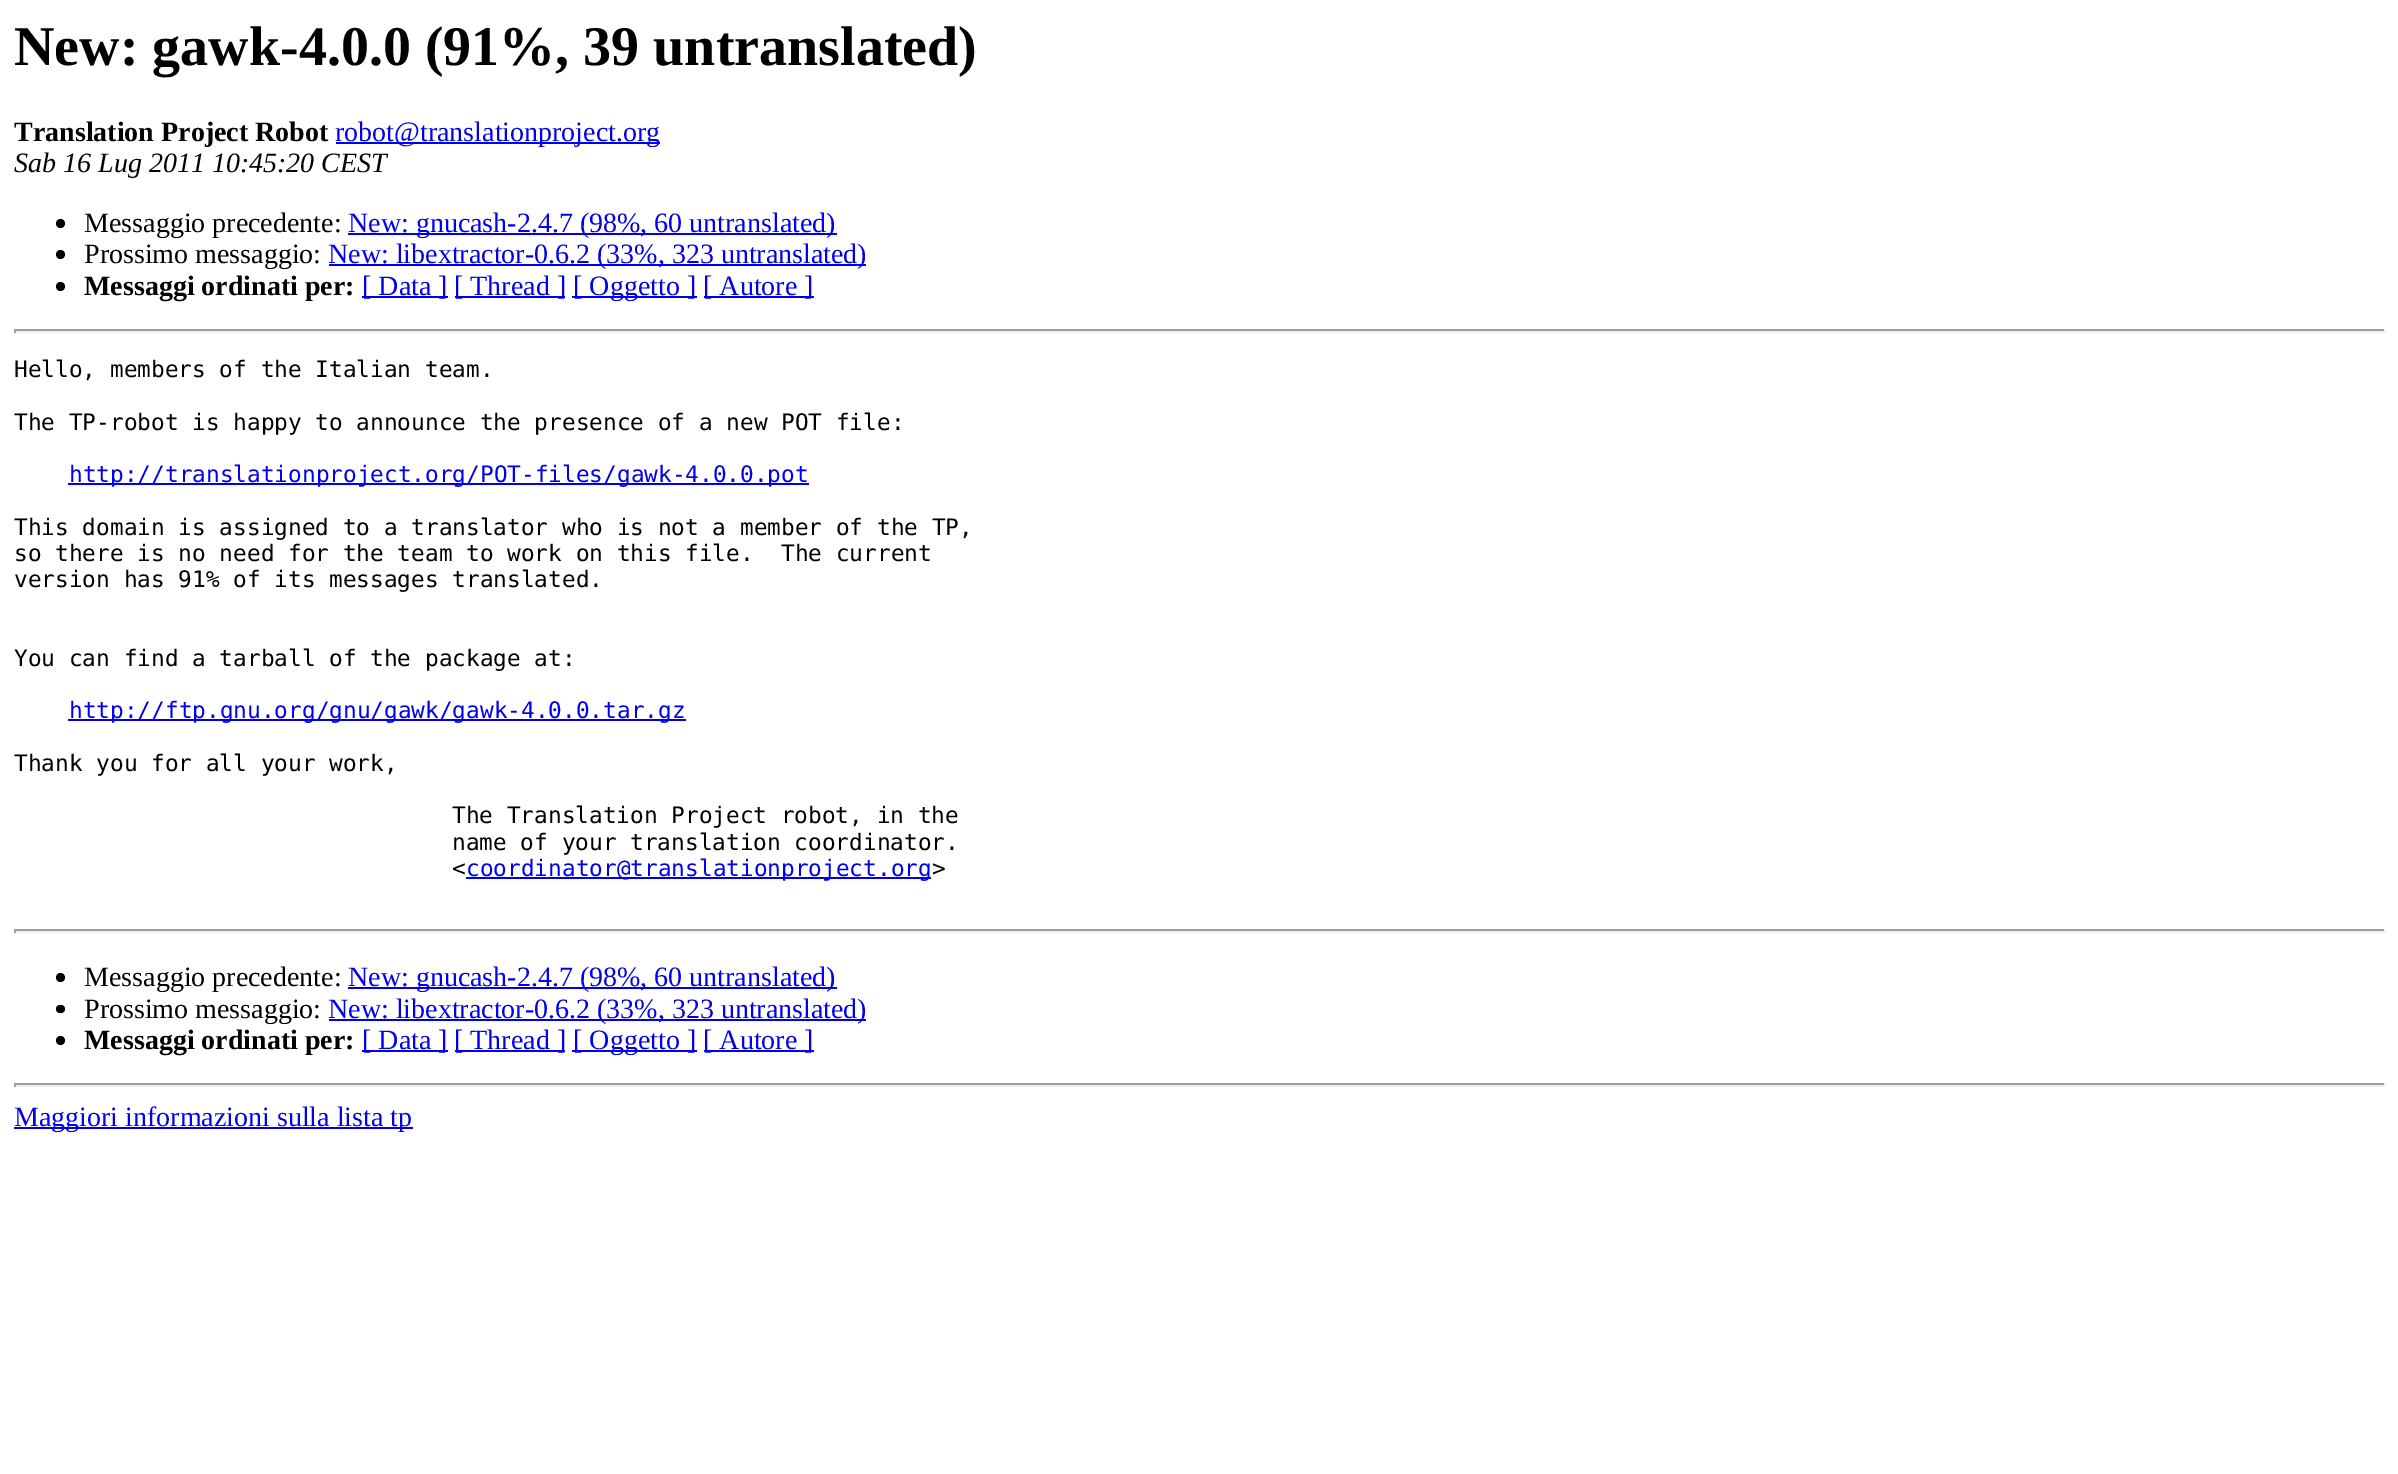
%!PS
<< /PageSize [2398 1474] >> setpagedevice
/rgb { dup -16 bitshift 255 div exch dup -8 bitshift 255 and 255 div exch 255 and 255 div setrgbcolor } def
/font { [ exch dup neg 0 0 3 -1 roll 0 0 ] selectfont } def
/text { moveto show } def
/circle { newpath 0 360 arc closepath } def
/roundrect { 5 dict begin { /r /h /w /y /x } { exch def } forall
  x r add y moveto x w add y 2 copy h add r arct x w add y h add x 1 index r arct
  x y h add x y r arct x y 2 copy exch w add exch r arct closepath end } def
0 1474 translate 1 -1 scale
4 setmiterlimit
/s1 { /LiberationSerif-Bold 56 font 16#000000 rgb } def
/s2 { /LiberationSerif-Bold 28 font 16#000000 rgb } def
/s3 { /LiberationSerif-Regular 28 font 16#0000EE rgb } def
/s4 { /LiberationSerif-Italic 28 font 16#000000 rgb } def
/s5 { /LiberationSerif-Regular 28 font 16#000000 rgb } def
/s6 { /DejaVuSansMono-Regular 22.75 font 16#000000 rgb } def
/s7 { /DejaVuSansMono-Regular 22.75 font 16#0000EE rgb } def
16#FFFFFF rgb
0 0 2398 1474 rectfill
s1
(New: gawk-4.0.0 \(91%, 39 untranslated\)) 14 65 text
s2
(Translation Project Robot) 14 141 text
16#0000EE rgb
336 142 324 2 rectfill
s3
(robot@translationproject.org) 335 141 text
s4
(Sab 16 Lug 2011 10:45:20 CEST) 14 172 text
60.5 223.5 4.5 circle fill
s5
(Messaggio precedente:) 84 232 text
16#0000EE rgb
348 233 489 2 rectfill
(New: gnucash-2.4.7 \(98%, 60 untranslated\)) 348 232 text
16#000000 rgb
60.5 254.5 4.5 circle fill
(Prossimo messaggio:) 84 263 text
16#0000EE rgb
329 264 537 2 rectfill
(New: libextractor-0.6.2 \(33%, 323 untranslated\)) 328 263 text
16#000000 rgb
60.5 286.5 4.5 circle fill
s2
(Messaggi ordinati per:) 84 295 text
16#0000EE rgb
362 296 86 2 rectfill
s3
([ Data ]) 362 295 text
455 296 110 2 rectfill
([ Thread ]) 454 295 text
572 296 125 2 rectfill
([ Oggetto ]) 573 295 text
704 296 110 2 rectfill
([ Autore ]) 703 295 text
16#9F9F9F rgb
14 329 2371 2 rectfill
16#EEEEEE rgb
2384 329 2 4 rectfill
14 331 2371 2 rectfill
16#9F9F9F rgb
14 329 2 4 rectfill
s6
(Hello, members of the Italian team.) 14 377 text
(The TP-robot is happy to announce the presence of a new POT file:) 14 430 text
16#0000EE rgb
68 483 741 2 rectfill
(http://translationproject.org/POT-files/gawk-4.0.0.pot) 69 482 text
s6
(This domain is assigned to a translator who is not a member of the TP,) 14 535 text
(so there is no need for the team to work on this file.  The current) 14 561 text
(version has 91% of its messages translated.) 14 587 text
(You can find a tarball of the package at:) 14 666 text
16#0000EE rgb
68 719 618 2 rectfill
(http://ftp.gnu.org/gnu/gawk/gawk-4.0.0.tar.gz) 69 718 text
s6
(Thank you for all your work,) 14 771 text
(The Translation Project robot, in the) 452 823 text
(name of your translation coordinator.) 452 850 text
(<) 452 876 text
16#0000EE rgb
466 877 465 2 rectfill
(coordinator@translationproject.org) 466 876 text
s6
(>) 932 876 text
16#9F9F9F rgb
14 929 2371 2 rectfill
16#EEEEEE rgb
2384 929 2 4 rectfill
14 931 2371 2 rectfill
16#9F9F9F rgb
14 929 2 4 rectfill
16#000000 rgb
60.5 977.5 4.5 circle fill
s5
(Messaggio precedente:) 84 986 text
16#0000EE rgb
348 987 489 2 rectfill
(New: gnucash-2.4.7 \(98%, 60 untranslated\)) 348 986 text
16#000000 rgb
56 1005 9 8 4 roundrect fill
(Prossimo messaggio:) 84 1018 text
16#0000EE rgb
329 1019 537 2 rectfill
(New: libextractor-0.6.2 \(33%, 323 untranslated\)) 328 1018 text
16#000000 rgb
60.5 1040.5 4.5 circle fill
s2
(Messaggi ordinati per:) 84 1049 text
16#0000EE rgb
362 1050 86 2 rectfill
s3
([ Data ]) 362 1049 text
455 1050 110 2 rectfill
([ Thread ]) 454 1049 text
572 1050 125 2 rectfill
([ Oggetto ]) 573 1049 text
704 1050 110 2 rectfill
([ Autore ]) 703 1049 text
16#9F9F9F rgb
14 1083 2371 2 rectfill
16#EEEEEE rgb
2384 1083 2 4 rectfill
14 1085 2371 2 rectfill
16#9F9F9F rgb
14 1083 2 4 rectfill
16#0000EE rgb
14 1127 399 2 rectfill
(Maggiori informazioni sulla lista tp) 14 1126 text
showpage
